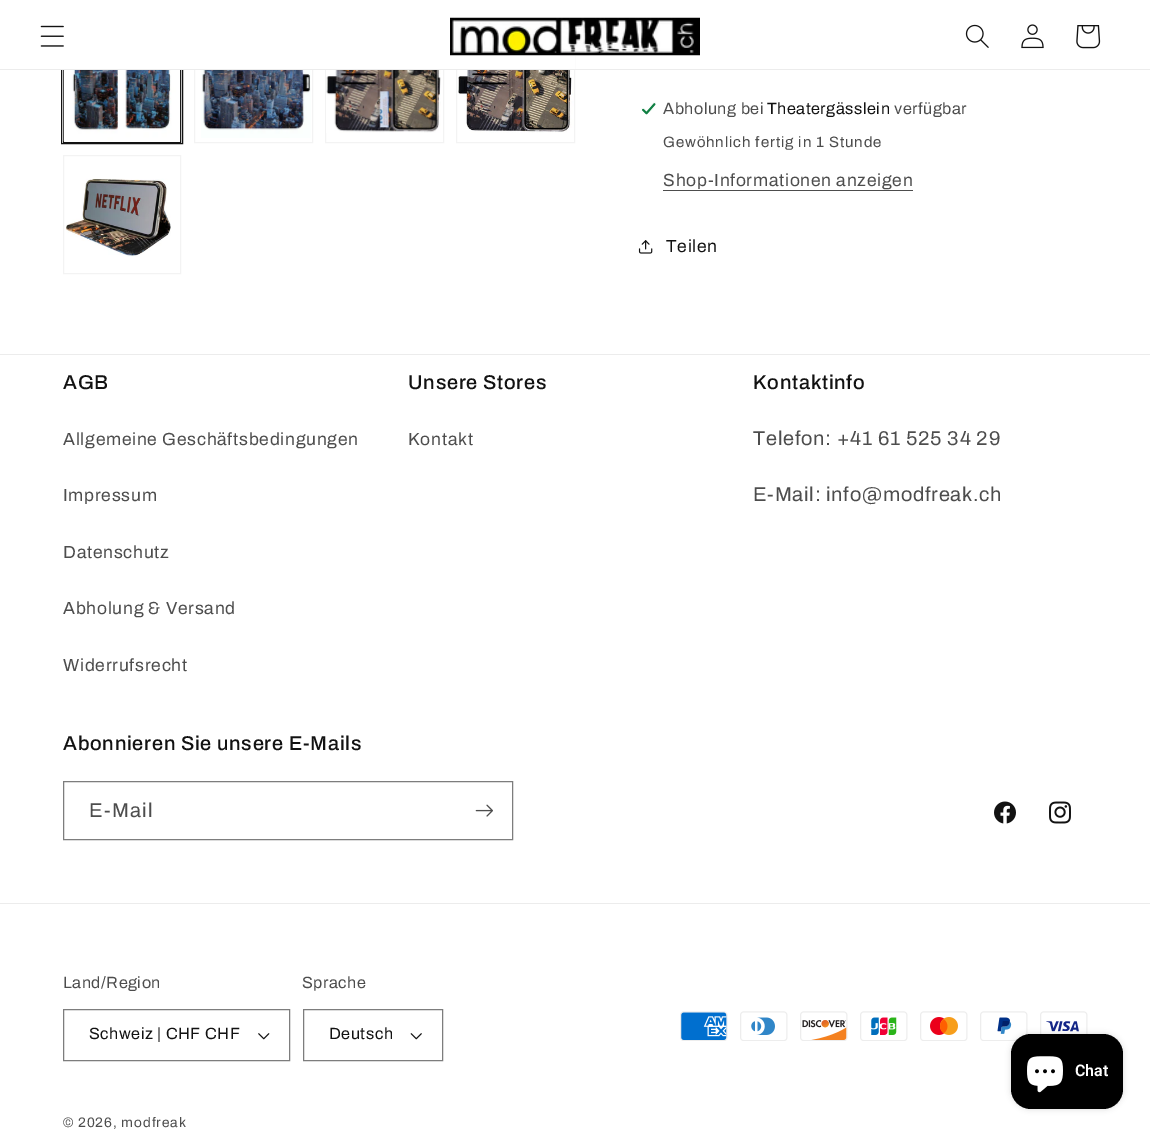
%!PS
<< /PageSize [1150 1135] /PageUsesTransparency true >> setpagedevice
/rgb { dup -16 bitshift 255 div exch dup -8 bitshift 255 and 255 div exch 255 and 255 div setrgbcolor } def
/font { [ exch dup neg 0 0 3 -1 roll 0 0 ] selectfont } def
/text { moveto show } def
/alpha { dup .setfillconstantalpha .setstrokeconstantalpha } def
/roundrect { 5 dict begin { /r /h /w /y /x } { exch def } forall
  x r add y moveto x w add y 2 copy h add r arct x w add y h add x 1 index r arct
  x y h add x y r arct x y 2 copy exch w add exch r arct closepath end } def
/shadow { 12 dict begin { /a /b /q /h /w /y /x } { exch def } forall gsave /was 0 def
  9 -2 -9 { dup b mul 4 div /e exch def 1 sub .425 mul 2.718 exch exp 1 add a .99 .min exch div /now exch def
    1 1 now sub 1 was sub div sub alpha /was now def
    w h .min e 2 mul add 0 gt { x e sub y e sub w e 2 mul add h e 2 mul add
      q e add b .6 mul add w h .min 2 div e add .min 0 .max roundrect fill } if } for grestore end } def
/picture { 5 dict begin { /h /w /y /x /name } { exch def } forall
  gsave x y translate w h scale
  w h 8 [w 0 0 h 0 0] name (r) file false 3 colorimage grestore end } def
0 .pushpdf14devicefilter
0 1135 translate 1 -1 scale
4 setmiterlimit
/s1 { /Roboto-SemiBold 16 font 16#FFFFFF rgb } def
16#FFFFFF rgb
0 0 1150 1135 rectfill
16#121212 rgb
61.5 23.5 121 120 rectstroke
63.5 24.5 117 118 rectstroke
16#F3F3F3 rgb
194.5 24.5 118 118 rectstroke
325.5 24.5 118 118 rectstroke
456.5 24.5 118 118 rectstroke
16#FFFFFF rgb
61 23 514 46 rectfill
16#ECECEC rgb
0 69 1150 1 rectfill
(pic1.raw) 40 25 24 22 picture
(pic2.raw) 450 17 250 39 picture
(pic3.raw) 965 24 24 24 picture
(pic4.raw) 1021 24 23 25 picture
(pic5.raw) 1076 25 25 24 picture
(pic6.raw) 63 70 118 72 picture
(pic7.raw) 201 70 110 68 picture
(pic8.raw) 326 70 115 63 picture
(pic9.raw) 458 70 116 63 picture
16#F3F3F3 rgb
63.5 155.5 117 118 rectstroke
(pic10.raw) 66 178 105 79 picture
(pic11.raw) 641 102 15 13 picture
/Archivo-Regular 16.25 font
16#4D4D4D rgb
663 114 moveto 0.5 0 (Abholung bei) ashow
16#121212 rgb
767 114 moveto 0.5 0 (Theatergässlein) ashow
16#4D4D4D rgb
894 114 moveto 0.5 0 (verfügbar) ashow
/Archivo-Regular 15 font
663 147 moveto 0.9 0 (Gewöhnlich fertig in 1 Stunde) ashow
/Archivo-Regular 17.5 font
663 186 moveto 0.75 0 (Shop-Informationen anzeigen) ashow
663 190 250 1 rectfill
(pic12.raw) 638 240 15 14 picture
16#121212 rgb
666 252 moveto 0.75 0 (Teilen) ashow
16#ECECEC rgb
0 354 1150 1 rectfill
/Archivo-Medium 20 font
16#121212 rgb
63 389 moveto 0.75 0 (AGB) ashow
/Archivo-Regular 17.5 font
16#4D4D4D rgb
63 445 moveto 0.75 0 (Allgemeine Geschäftsbedingungen) ashow
63 501 moveto 0.75 0 (Impressum) ashow
63 558 moveto 0.75 0 (Datenschutz) ashow
63 614 moveto 0.75 0 (Abholung & Versand) ashow
63 671 moveto 0.75 0 (Widerrufsrecht) ashow
/Archivo-Medium 20 font
16#121212 rgb
408 389 moveto 0.75 0 (Unsere Stores) ashow
/Archivo-Regular 17.5 font
16#4D4D4D rgb
408 445 moveto 0.75 0 (Kontakt) ashow
/Archivo-Medium 20 font
16#121212 rgb
753 389 moveto 0.75 0 (Kontaktinfo) ashow
/Archivo-Regular 20 font
16#4D4D4D rgb
753 445 moveto 0.75 0 (Telefon: +41 61 525 34 29) ashow
753 501 moveto 0.75 0 (E-Mail: info@modfreak.ch) ashow
/Archivo-Medium 20 font
16#121212 rgb
63 750 moveto 0.75 0 (Abonnieren Sie unsere E-Mails) ashow
16#7D7D7D rgb
63.5 781.5 449 58 rectstroke
/Archivo-Regular 20 font
16#4D4D4D rgb
89 817 moveto 1.25 0 (E-Mail) ashow
(pic13.raw) 475 804 18 13 picture
(pic14.raw) 994 801 22 23 picture
(pic15.raw) 1049 801 22 23 picture
16#ECECEC rgb
0 903 1150 1 rectfill
/Archivo-Regular 16.25 font
16#4D4D4D rgb
63 988 moveto 0.5 0 (Land/Region) ashow
(pic16.raw) 258 1033 12 7 picture
16#7D7D7D rgb
63.5 1009.5 226 51 rectstroke
16#121212 rgb
89 1039 moveto 0.5 0 (Schweiz | CHF CHF) ashow
16#4D4D4D rgb
302 988 moveto 0.5 0 (Sprache) ashow
(pic17.raw) 410 1033 12 7 picture
16#7D7D7D rgb
303.5 1009.5 139 51 rectstroke
16#121212 rgb
329 1039 moveto 0.5 0 (Deutsch) ashow
(pic18.raw) 680 1011 48 30 picture
(pic19.raw) 740 1011 48 30 picture
(pic20.raw) 800 1011 48 30 picture
(pic21.raw) 860 1011 48 30 picture
(pic22.raw) 920 1011 48 30 picture
(pic23.raw) 980 1011 48 30 picture
(pic24.raw) 1040 1011 48 23 picture
/Archivo-Regular 13.75 font
16#4D4D4D rgb
63 1127 moveto 0.9 0 (© 2026, modfreak) ashow
16#000000 rgb
1011 1034 112 75 20 3 0.15 shadow
1011 1034 112 75 20 roundrect fill
(pic25.raw) 1027 1056 36 37 picture
s1
(Chat) 1075 1076 text
.poppdf14devicefilter showpage
